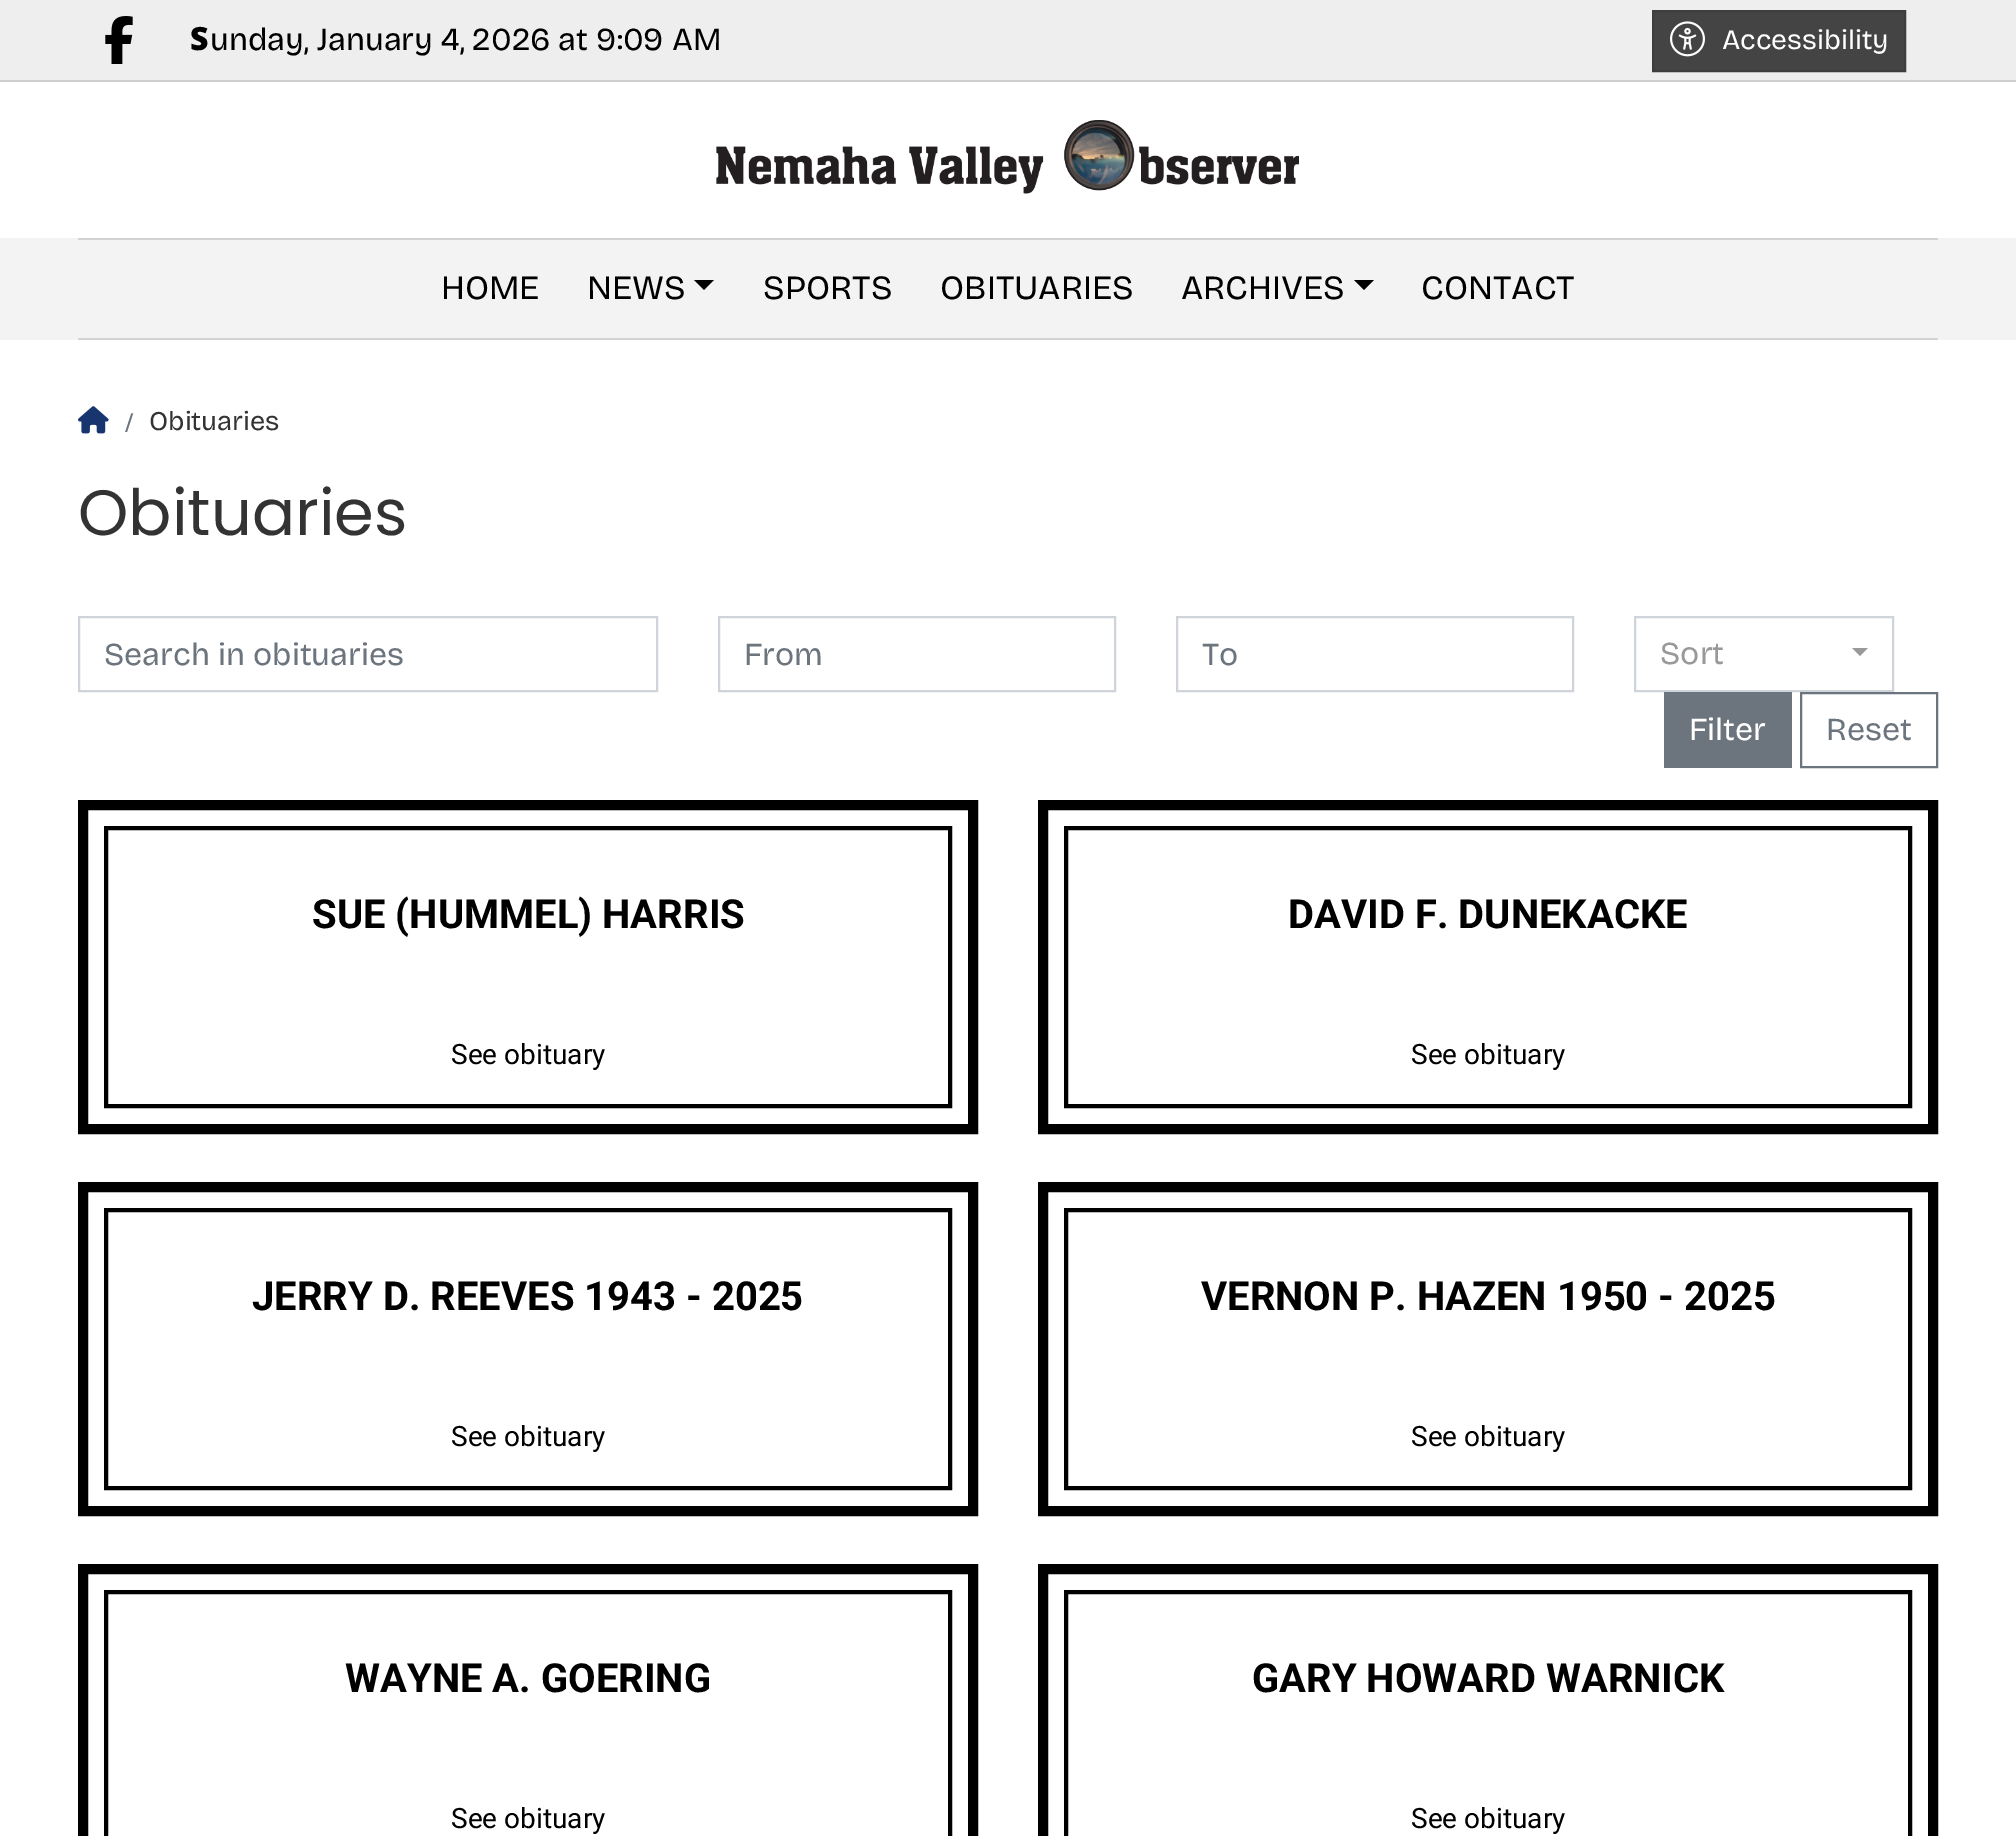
%!PS
<< /PageSize [2016 1836] >> setpagedevice
/rgb { dup -16 bitshift 255 div exch dup -8 bitshift 255 and 255 div exch 255 and 255 div setrgbcolor } def
/font { [ exch dup neg 0 0 3 -1 roll 0 0 ] selectfont } def
/text { moveto show } def
/picture { 5 dict begin { /h /w /y /x /name } { exch def } forall
  gsave x y translate w h scale
  w h 8 [w 0 0 h 0 0] name (r) file false 3 colorimage grestore end } def
0 1836 translate 1 -1 scale
4 setmiterlimit
/s1 { /NotoSans-Black 32 font 16#000000 rgb } def
/s2 { /BricolageGrotesque-ExtraBold 32 font 16#000000 rgb } def
/s3 { /BricolageGrotesque-ExtraBold 28 font 16#FFFFFF rgb } def
/s4 { /BricolageGrotesque-ExtraBold 34 font 16#000000 rgb } def
/s5 { /BricolageGrotesque-ExtraBold 24 font 16#6C757D rgb } def
/s6 { /BricolageGrotesque-ExtraBold 27 font 16#333333 rgb } def
/s7 { /Poppins-Regular 64 font 16#333333 rgb } def
/s8 { /BricolageGrotesque-ExtraBold 32 font 16#6C757D rgb } def
/s9 { /BricolageGrotesque-ExtraBold 32 font 16#999999 rgb } def
/s10 { /BricolageGrotesque-ExtraBold 32 font 16#FFFFFF rgb } def
/s11 { /Roboto-Bold 40 font 16#000000 rgb } def
/s12 { /Roboto-Regular 28 font 16#000000 rgb } def
16#FFFFFF rgb
0 0 2016 1836 rectfill
16#EEEEEE rgb
0 0 2016 80 rectfill
16#CECECE rgb
0 80 2016 2 rectfill
(pic1.raw) 105 16 28 48 picture
s1
(S) 190 50 text
s2
(unday, January 4, 2026 at 9:09 AM) 210 50 text
16#444444 rgb
1653 11 moveto 1905 11 lineto 1905 71 lineto 1653 71 lineto closepath gsave fill grestore
16#3E3E3E rgb
2 setlinewidth
stroke
(pic2.raw) 1670 21 35 36 picture
s3
(Accessibility) 1722 49 text
(pic3.raw) 716 120 583 74 picture
16#F3F3F3 rgb
0 238 2016 102 rectfill
16#D3D3D3 rgb
78 238 1860 2 rectfill
78 338 1860 2 rectfill
s4
(HOME) 441 299 text
(NEWS) 587 299 text
694 280 moveto 714 280 lineto 704 290 lineto closepath fill
(SPORTS) 763 299 text
(OBITUARIES) 940 299 text
(ARCHIVES) 1181 299 text
1354 280 moveto 1374 280 lineto 1364 290 lineto closepath fill
(CONTACT) 1421 299 text
(pic4.raw) 78 406 31 28 picture
s5
(/) 125 430 text
s6
(Obituaries) 149 430 text
s7
(Obituaries) 78 535 text
16#CED4DA rgb
79 617 578 74 rectstroke
s8
(Search in obituaries) 104 665 text
16#CED4DA rgb
719 617 396 74 rectstroke
s8
(From) 744 665 text
16#CED4DA rgb
1177 617 396 74 rectstroke
s8
(To) 1202 665 text
16#CED4DA rgb
1635 617 258 74 rectstroke
s9
(Sort) 1660 664 text
1852 648 moveto 1868 648 lineto 1860 656 lineto closepath fill
16#6C757D rgb
1664 692 128 76 rectfill
s10
(Filter) 1689 740 text
16#6C757D rgb
1801 693 136 74 rectstroke
(Reset) 1826 740 text
16#000000 rgb
10 setlinewidth
83 805 890 324 rectstroke
4 setlinewidth
106 828 844 278 rectstroke
s11
(SUE \(HUMMEL\) HARRIS) 312 928 text
s12
(See obituary) 451 1064 text
10 setlinewidth
1043 805 890 324 rectstroke
4 setlinewidth
1066 828 844 278 rectstroke
s11
(DAVID F. DUNEKACKE) 1288 928 text
s12
(See obituary) 1411 1064 text
10 setlinewidth
83 1187 890 324 rectstroke
4 setlinewidth
106 1210 844 278 rectstroke
s11
(JERRY D. REEVES 1943 - 2025) 252 1310 text
s12
(See obituary) 451 1446 text
10 setlinewidth
1043 1187 890 324 rectstroke
4 setlinewidth
1066 1210 844 278 rectstroke
s11
(VERNON P. HAZEN 1950 - 2025) 1201 1310 text
s12
(See obituary) 1411 1446 text
10 setlinewidth
83 1569 890 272 rectstroke
4 setlinewidth
106 1592 844 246 rectstroke
s11
(WAYNE A. GOERING) 345 1692 text
s12
(See obituary) 451 1828 text
10 setlinewidth
1043 1569 890 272 rectstroke
4 setlinewidth
1066 1592 844 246 rectstroke
s11
(GARY HOWARD WARNICK) 1252 1692 text
s12
(See obituary) 1411 1828 text
showpage
